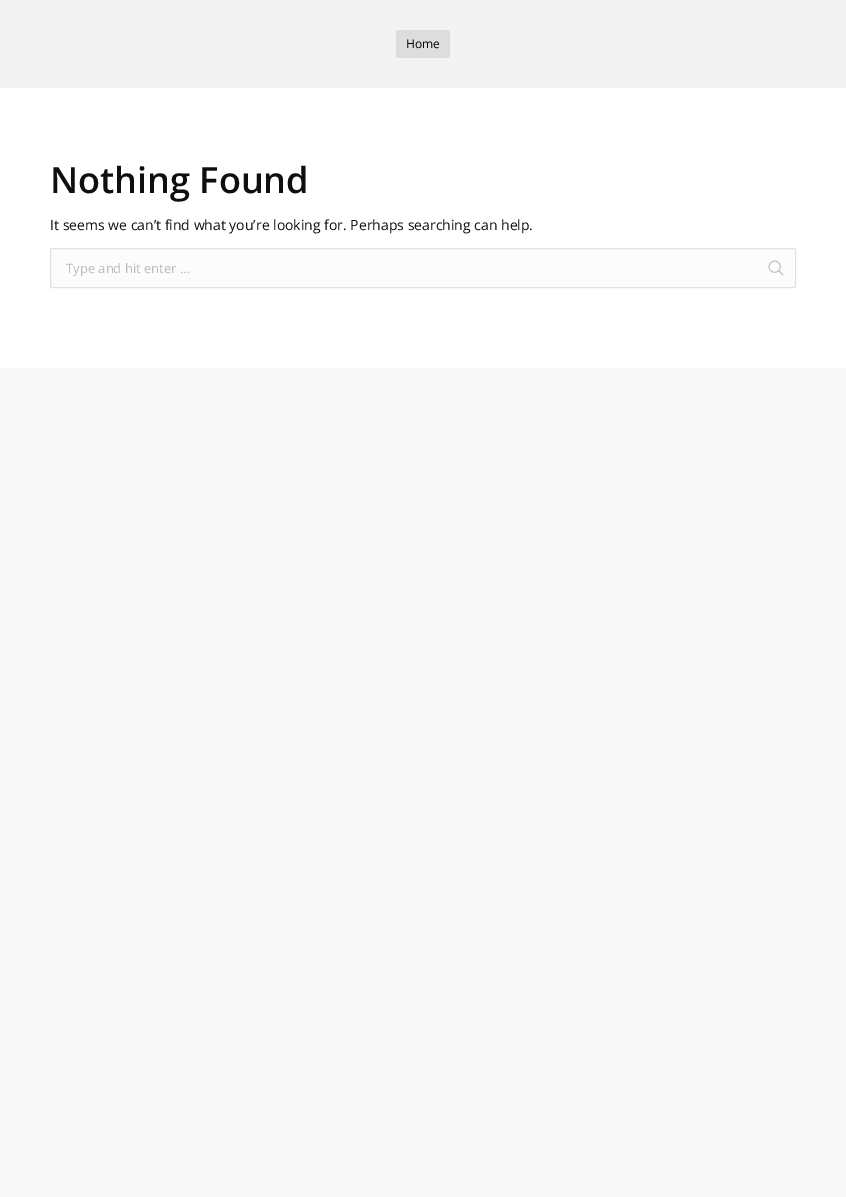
%!PS
<< /PageSize [846 1197] >> setpagedevice
/rgb { dup -16 bitshift 255 div exch dup -8 bitshift 255 and 255 div exch 255 and 255 div setrgbcolor } def
/font { [ exch dup neg 0 0 3 -1 roll 0 0 ] selectfont } def
/text { moveto show } def
/roundrect { 5 dict begin { /r /h /w /y /x } { exch def } forall
  x r add y moveto x w add y 2 copy h add r arct x w add y h add x 1 index r arct
  x y h add x y r arct x y 2 copy exch w add exch r arct closepath end } def
/picture { 5 dict begin { /h /w /y /x /name } { exch def } forall
  gsave x y translate w h scale
  w h 8 [w 0 0 h 0 0] name (r) file false 3 colorimage grestore end } def
0 1197 translate 1 -1 scale
4 setmiterlimit
/s1 { /OpenSans-Regular 12 font 16#0F0000 rgb } def
/s2 { /OpenSans-SemiBold 36 font 16#0F0F0F rgb } def
/s3 { /OpenSans-Regular 14 font 16#0F0F0F rgb } def
/s4 { /OpenSans-Regular 13 font 16#B8BCBE rgb } def
16#F8F8F9 rgb
0 0 846 1197 rectfill
16#FFFFFF rgb
0 88 846 280 rectfill
16#F3F3F3 rgb
0 0 846 88 rectfill
16#DCDDDD rgb
396 30 54 28 2 roundrect fill
s1
(Home) 406 48 text
s2
(Nothing Found) 50 193 text
s3
(It seems we can’t find what you’re looking for. Perhaps searching can help.) 50 230 text
16#FCFCFC rgb
50.5 248.5 745 39 1.5 roundrect gsave fill grestore
16#E0E1E1 rgb
stroke
s4
(Type and hit enter …) 66 273 text
(pic1.raw) 768 260 16 16 picture
showpage
